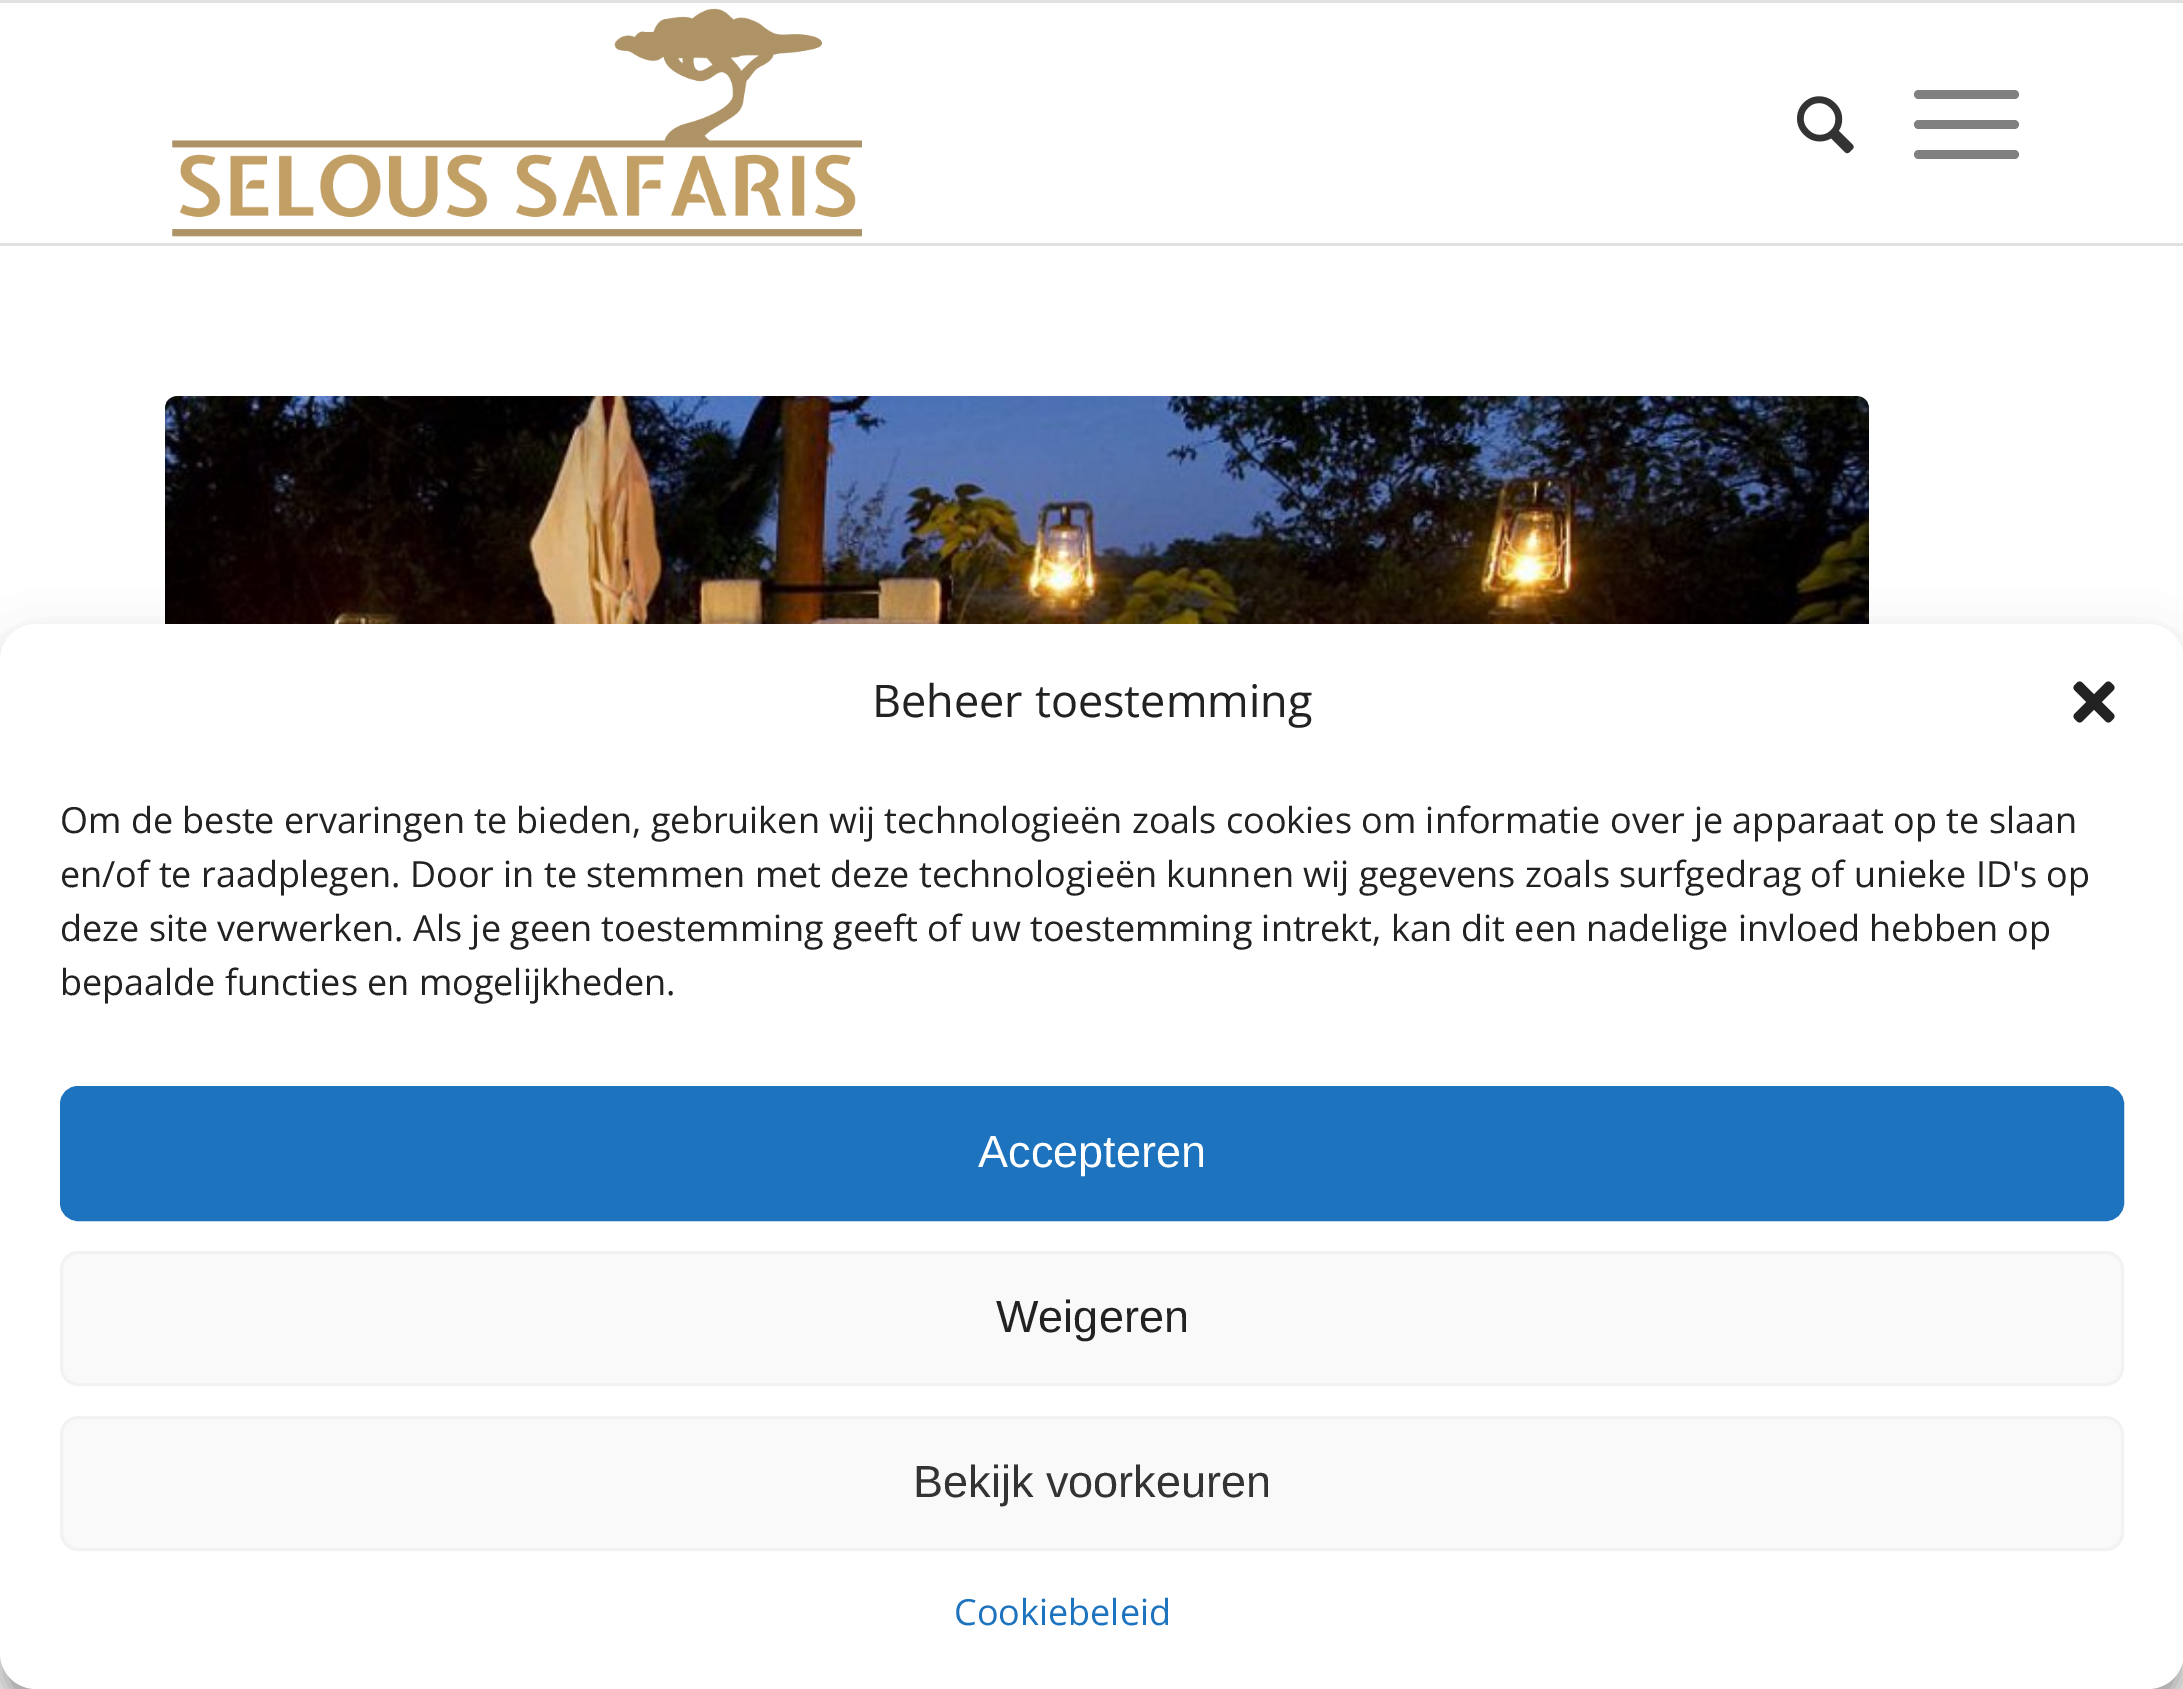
%!PS
<< /PageSize [2183 1689] /PageUsesTransparency true >> setpagedevice
/rgb { dup -16 bitshift 255 div exch dup -8 bitshift 255 and 255 div exch 255 and 255 div setrgbcolor } def
/font { [ exch dup neg 0 0 3 -1 roll 0 0 ] selectfont } def
/text { moveto show } def
/alpha { dup .setfillconstantalpha .setstrokeconstantalpha } def
/roundrect { 5 dict begin { /r /h /w /y /x } { exch def } forall
  x r add y moveto x w add y 2 copy h add r arct x w add y h add x 1 index r arct
  x y h add x y r arct x y 2 copy exch w add exch r arct closepath end } def
/shadow { 12 dict begin { /a /b /q /h /w /y /x } { exch def } forall gsave /was 0 def
  9 -2 -9 { dup b mul 4 div /e exch def 1 sub .425 mul 2.718 exch exp 1 add a .99 .min exch div /now exch def
    1 1 now sub 1 was sub div sub alpha /was now def
    w h .min e 2 mul add 0 gt { x e sub y e sub w e 2 mul add h e 2 mul add
      q e add b .6 mul add w h .min 2 div e add .min 0 .max roundrect fill } if } for grestore end } def
/picture { 5 dict begin { /h /w /y /x /name } { exch def } forall
  gsave x y translate w h scale
  w h 8 [w 0 0 h 0 0] name (r) file false 3 colorimage grestore end } def
0 .pushpdf14devicefilter
0 1689 translate 1 -1 scale
4 setmiterlimit
/s1 { /OpenSans-Regular 45 font 16#222222 rgb } def
/s2 { /OpenSans-Regular 36 font 16#222222 rgb } def
/s3 { /LiberationSans-Regular 45 font 16#FFFFFF rgb } def
/s4 { /LiberationSans-Regular 45 font 16#222222 rgb } def
/s5 { /LiberationSans-Regular 45 font 16#333333 rgb } def
/s6 { /OpenSans-Regular 36 font 16#1E73BE rgb } def
16#FFFFFF rgb
0 0 2183 1689 rectfill
16#E1E1E1 rgb
0 0 2183 3 rectfill
0 243 2183 3 rectfill
(pic1.raw) 172 8 690 229 picture
(pic2.raw) 1797 96 57 58 picture
16#808080 rgb
1914 120 105 9 4.5 roundrect fill
1914 90 105 9 4.5 roundrect fill
1914 150 105 9 4.5 roundrect fill
(pic3.raw) 165 396 1704 228 picture
16#000000 rgb
0 642 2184 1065 36 9 0.23 shadow
0 654 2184 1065 36 30 0.19 shadow
16#FFFFFF rgb
0 624 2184 1065 36 roundrect fill
s1
(Beheer toestemming) 872 717 text
(pic4.raw) 2073 681 42 42 picture
s2
(Om de beste ervaringen te bieden, gebruiken wij technologieën zoals cookies om informatie over je apparaat op te slaan) 60 833 text
(en/of te raadplegen. Door in te stemmen met deze technologieën kunnen wij gegevens zoals surfgedrag of unieke ID's op) 60 887 text
(deze site verwerken. Als je geen toestemming geeft of uw toestemming intrekt, kan dit een nadelige invloed hebben op) 60 941 text
(bepaalde functies en mogelijkheden.) 60 995 text
16#1E73BE rgb
61.5 1087.5 2061 132 16.5 roundrect gsave fill grestore
3 setlinewidth
stroke
s3
(Accepteren) 978 1167 text
16#F9F9F9 rgb
61.5 1252.5 2061 132 16.5 roundrect gsave fill grestore
16#F2F2F2 rgb
stroke
s4
(Weigeren) 996 1332 text
16#F9F9F9 rgb
61.5 1417.5 2061 132 16.5 roundrect gsave fill grestore
16#F2F2F2 rgb
stroke
s5
(Bekijk voorkeuren) 913 1497 text
s6
(Cookiebeleid) 954 1625 text
.poppdf14devicefilter showpage
